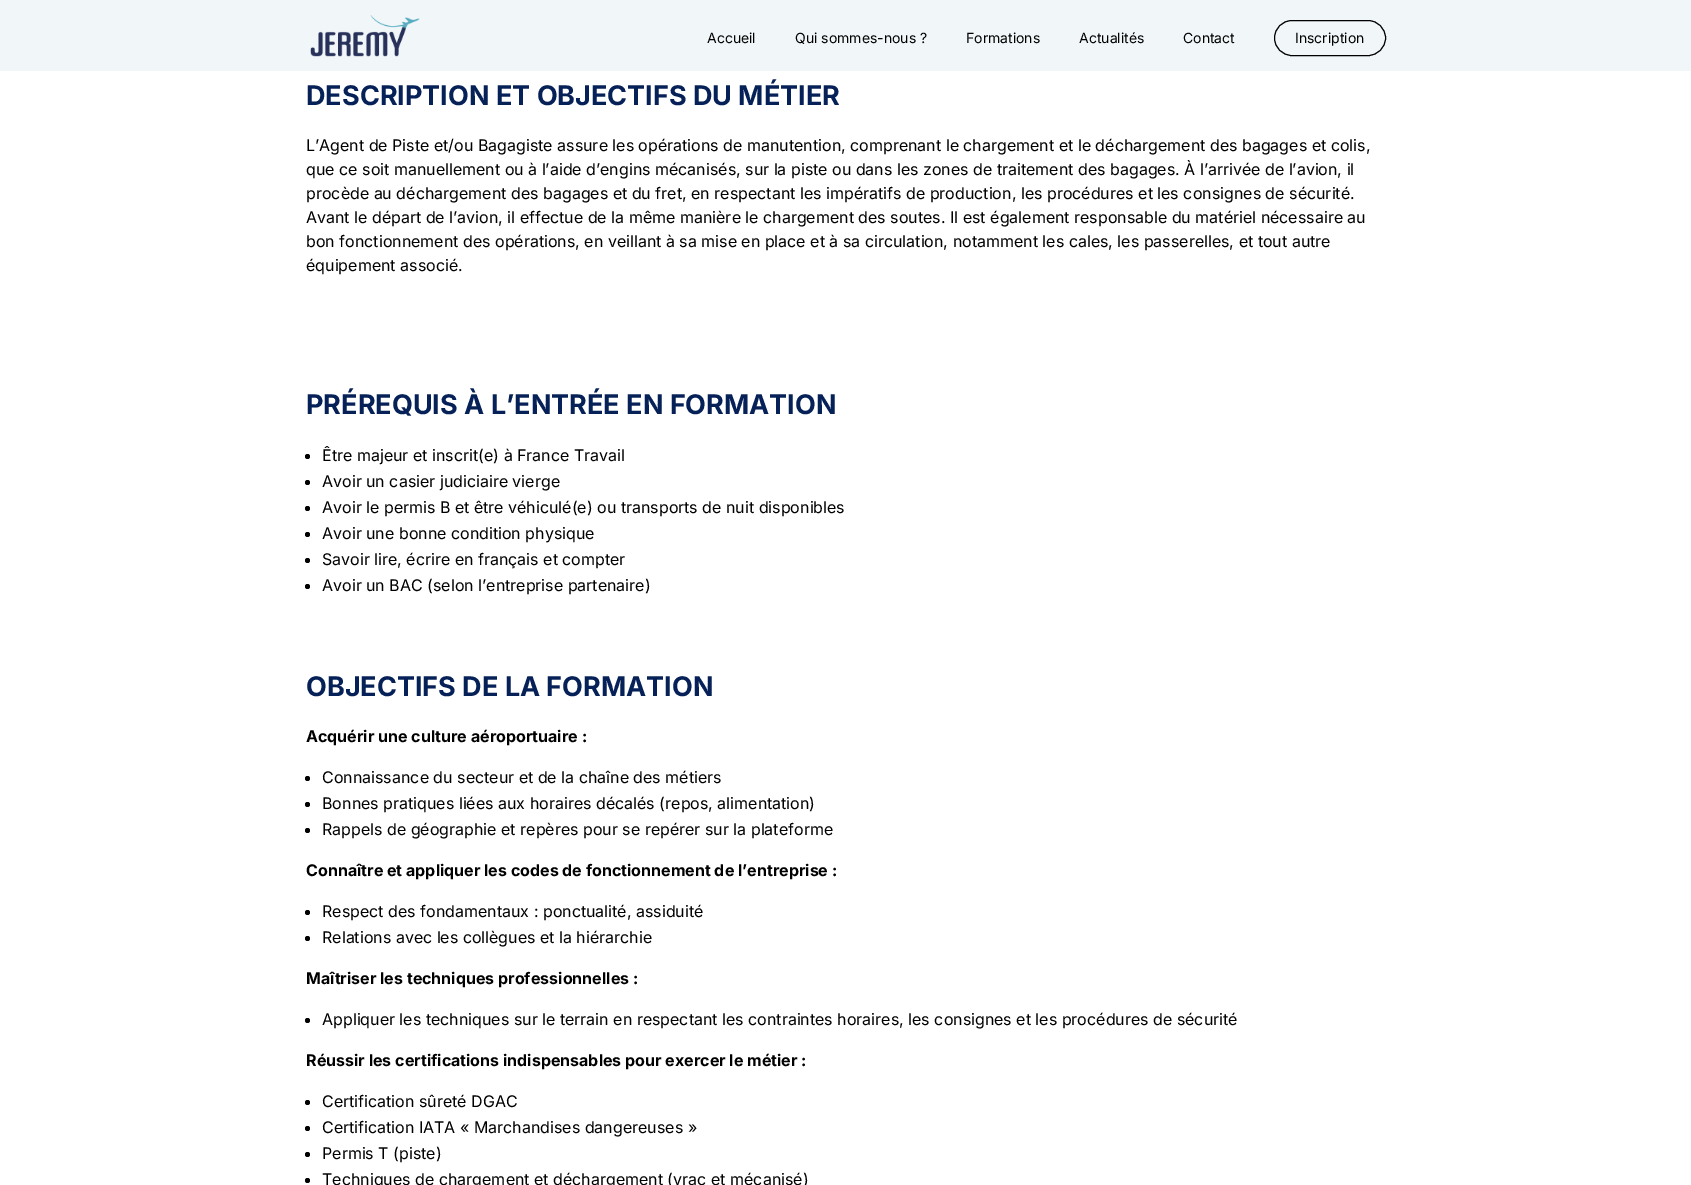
%!PS
<< /PageSize [1691 1185] >> setpagedevice
/rgb { dup -16 bitshift 255 div exch dup -8 bitshift 255 and 255 div exch 255 and 255 div setrgbcolor } def
/font { [ exch dup neg 0 0 3 -1 roll 0 0 ] selectfont } def
/text { moveto show } def
/circle { newpath 0 360 arc closepath } def
/roundrect { 5 dict begin { /r /h /w /y /x } { exch def } forall
  x r add y moveto x w add y 2 copy h add r arct x w add y h add x 1 index r arct
  x y h add x y r arct x y 2 copy exch w add exch r arct closepath end } def
/picture { 5 dict begin { /h /w /y /x /name } { exch def } forall
  gsave x y translate w h scale
  w h 8 [w 0 0 h 0 0] name (r) file false 3 colorimage grestore end } def
0 1185 translate 1 -1 scale
4 setmiterlimit
/s1 { /Inter-Regular 14 font 16#000000 rgb } def
/s2 { /Inter-Bold 27 font 16#062157 rgb } def
/s3 { /Inter-Regular 16 font 16#000000 rgb } def
/s4 { /Inter-Bold 16 font 16#000000 rgb } def
16#FFFFFF rgb
0 0 1691 1185 rectfill
16#F1F6F9 rgb
0 0 1691 71 rectfill
(pic1.raw) 310 15 110 42 picture
s1
(Accueil) 707 43 text
(Qui sommes-nous ?) 795 43 text
(Formations) 966 43 text
(Actualités) 1079 43 text
(Contact) 1183 43 text
1274.5 20.5 111 35 17.5 roundrect stroke
(Inscription) 1295 43 text
s2
(DESCRIPTION ET OBJECTIFS DU MÉTIER) 306 105 text
s3
(L’Agent de Piste et/ou Bagagiste assure les opérations de manutention, comprenant le chargement et le déchargement des bagages et colis,) 306 151 text
(que ce soit manuellement ou à l’aide d’engins mécanisés, sur la piste ou dans les zones de traitement des bagages. À l’arrivée de l’avion, il) 306 175 text
(procède au déchargement des bagages et du fret, en respectant les impératifs de production, les procédures et les consignes de sécurité.) 306 199 text
(Avant le départ de l’avion, il effectue de la même manière le chargement des soutes. Il est également responsable du matériel nécessaire au) 306 223 text
(bon fonctionnement des opérations, en veillant à sa mise en place et à sa circulation, notamment les cales, les passerelles, et tout autre) 306 247 text
(équipement associé.) 306 271 text
s2
(PRÉREQUIS À L’ENTRÉE EN FORMATION) 306 414 text
16#000000 rgb
307.5 456.5 2.5 circle fill
s3
(Être majeur et inscrit\(e\) à France Travail) 322 461 text
307.5 482.5 2.5 circle fill
(Avoir un casier judiciaire vierge) 322 487 text
307.5 508.5 2.5 circle fill
(Avoir le permis B et être véhiculé\(e\) ou transports de nuit disponibles) 322 513 text
307.5 534.5 2.5 circle fill
(Avoir une bonne condition physique) 322 539 text
307.5 560.5 2.5 circle fill
(Savoir lire, écrire en français et compter) 322 565 text
307.5 586.5 2.5 circle fill
(Avoir un BAC \(selon l’entreprise partenaire\)) 322 591 text
s2
(OBJECTIFS DE LA FORMATION) 306 696 text
s4
(Acquérir une culture aéroportuaire :) 306 742 text
307.5 778.5 2.5 circle fill
s3
(Connaissance du secteur et de la chaîne des métiers) 322 783 text
307.5 804.5 2.5 circle fill
(Bonnes pratiques liées aux horaires décalés \(repos, alimentation\)) 322 809 text
307.5 830.5 2.5 circle fill
(Rappels de géographie et repères pour se repérer sur la plateforme) 322 835 text
s4
(Connaître et appliquer les codes de fonctionnement de l’entreprise :) 306 876 text
307.5 912.5 2.5 circle fill
s3
(Respect des fondamentaux : ponctualité, assiduité) 322 917 text
307.5 938.5 2.5 circle fill
(Relations avec les collègues et la hiérarchie) 322 943 text
s4
(Maîtriser les techniques professionnelles :) 306 984 text
307.5 1020.5 2.5 circle fill
s3
(Appliquer les techniques sur le terrain en respectant les contraintes horaires, les consignes et les procédures de sécurité) 322 1025 text
s4
(Réussir les certifications indispensables pour exercer le métier :) 306 1066 text
307.5 1102.5 2.5 circle fill
s3
(Certification sûreté DGAC) 322 1107 text
307.5 1128.5 2.5 circle fill
(Certification IATA « Marchandises dangereuses ») 322 1133 text
307.5 1154.5 2.5 circle fill
(Permis T \(piste\)) 322 1159 text
307.5 1180.5 2.5 circle fill
(Techniques de chargement et déchargement \(vrac et mécanisé\)) 322 1185 text
showpage
